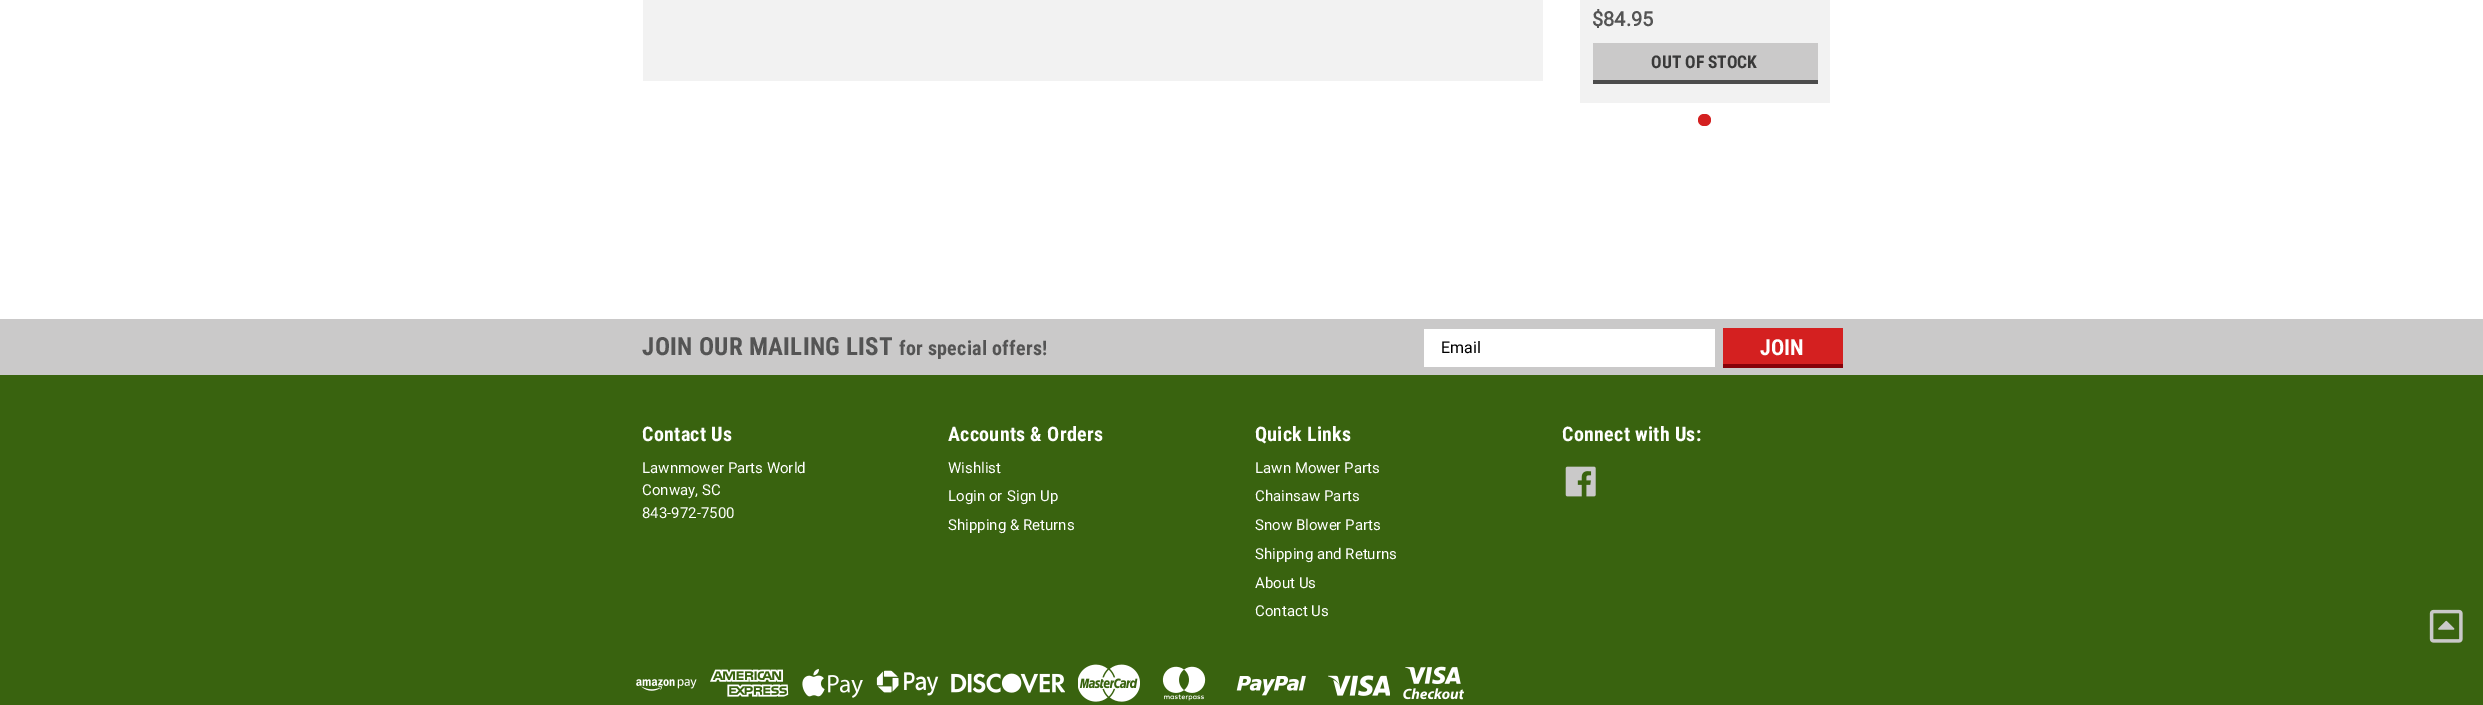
%!PS
<< /PageSize [2483 705] >> setpagedevice
/rgb { dup -16 bitshift 255 div exch dup -8 bitshift 255 and 255 div exch 255 and 255 div setrgbcolor } def
/font { [ exch dup neg 0 0 3 -1 roll 0 0 ] selectfont } def
/text { moveto show } def
/roundrect { 5 dict begin { /r /h /w /y /x } { exch def } forall
  x r add y moveto x w add y 2 copy h add r arct x w add y h add x 1 index r arct
  x y h add x y r arct x y 2 copy exch w add exch r arct closepath end } def
/picture { 5 dict begin { /h /w /y /x /name } { exch def } forall
  gsave x y translate w h scale
  w h 8 [w 0 0 h 0 0] name (r) file false 3 colorimage grestore end } def
0 705 translate 1 -1 scale
4 setmiterlimit
/s1 { /Roboto-Bold 20 font 16#545454 rgb } def
/s2 { /RobotoCondensed-Bold 17.5 font 16#393939 rgb } def
/s3 { /Roboto-Regular 16 font 16#000000 rgb } def
/s4 { /RobotoCondensed-Bold 22 font 16#FFFFFF rgb } def
/s5 { /Roboto-Regular 15 font 16#FFFFFF rgb } def
16#FFFFFF rgb
0 0 2483 705 rectfill
16#F2F2F2 rgb
643 0 900 81 rectfill
1580 0 250 103 rectfill
s1
($84.95) 1592 26 text
16#CAC9C9 rgb
1593 43 225 37 rectfill
16#4C4C4C rgb
1593 80 225 4 rectfill
s2
(OUT OF STOCK) 1651 68 text
16#D42020 rgb
1698 114 13 12 6 roundrect fill
16#39630F rgb
0 375 2483 330 rectfill
16#CAC9C9 rgb
0 319 2483 56 rectfill
/RobotoCondensed-Bold 25 font
16#545454 rgb
642 355 moveto 0.3 0 (JOIN OUR MAILING LIST) ashow
/RobotoCondensed-Bold 20 font
899 355 moveto 0.3 0 (for special offers!) ashow
16#FFFFFF rgb
1424 329 291 38 rectfill
s3
(Email) 1441 353 text
16#D42020 rgb
1723 328 120 36 rectfill
16#860109 rgb
1723 364 120 4 rectfill
s4
(JOIN) 1760 355 text
/RobotoCondensed-Bold 20 font
642 441 moveto 0.3 0 (Contact Us) ashow
s5
(Lawnmower Parts World) 642 473 text
(Conway, SC) 642 495 text
(843-972-7500) 642 518 text
/RobotoCondensed-Bold 20 font
948 441 moveto 0.3 0 (Accounts & Orders) ashow
s5
(Wishlist) 948 473 text
(Login or) 948 501 text
(Sign Up) 1007 501 text
(Shipping & Returns) 948 530 text
/RobotoCondensed-Bold 20 font
1255 441 moveto 0.3 0 (Quick Links) ashow
s5
(Lawn Mower Parts) 1255 473 text
(Chainsaw Parts) 1255 501 text
(Snow Blower Parts) 1255 530 text
(Shipping and Returns) 1255 559 text
(About Us) 1255 588 text
(Contact Us) 1255 616 text
/RobotoCondensed-Bold 20 font
1562 441 moveto 0.3 0 (Connect with Us:) ashow
(pic1.raw) 1565 466 31 31 picture
(pic2.raw) 636 679 61 12 picture
(pic3.raw) 710 669 79 28 picture
(pic4.raw) 802 669 61 29 picture
(pic5.raw) 876 670 63 26 picture
(pic6.raw) 951 673 114 20 picture
(pic7.raw) 1078 664 62 38 picture
(pic8.raw) 1162 666 44 35 picture
(pic9.raw) 1236 675 70 21 picture
(pic10.raw) 1328 675 62 21 picture
(pic11.raw) 1403 666 62 34 picture
(pic12.raw) 2429 609 34 34 picture
showpage
